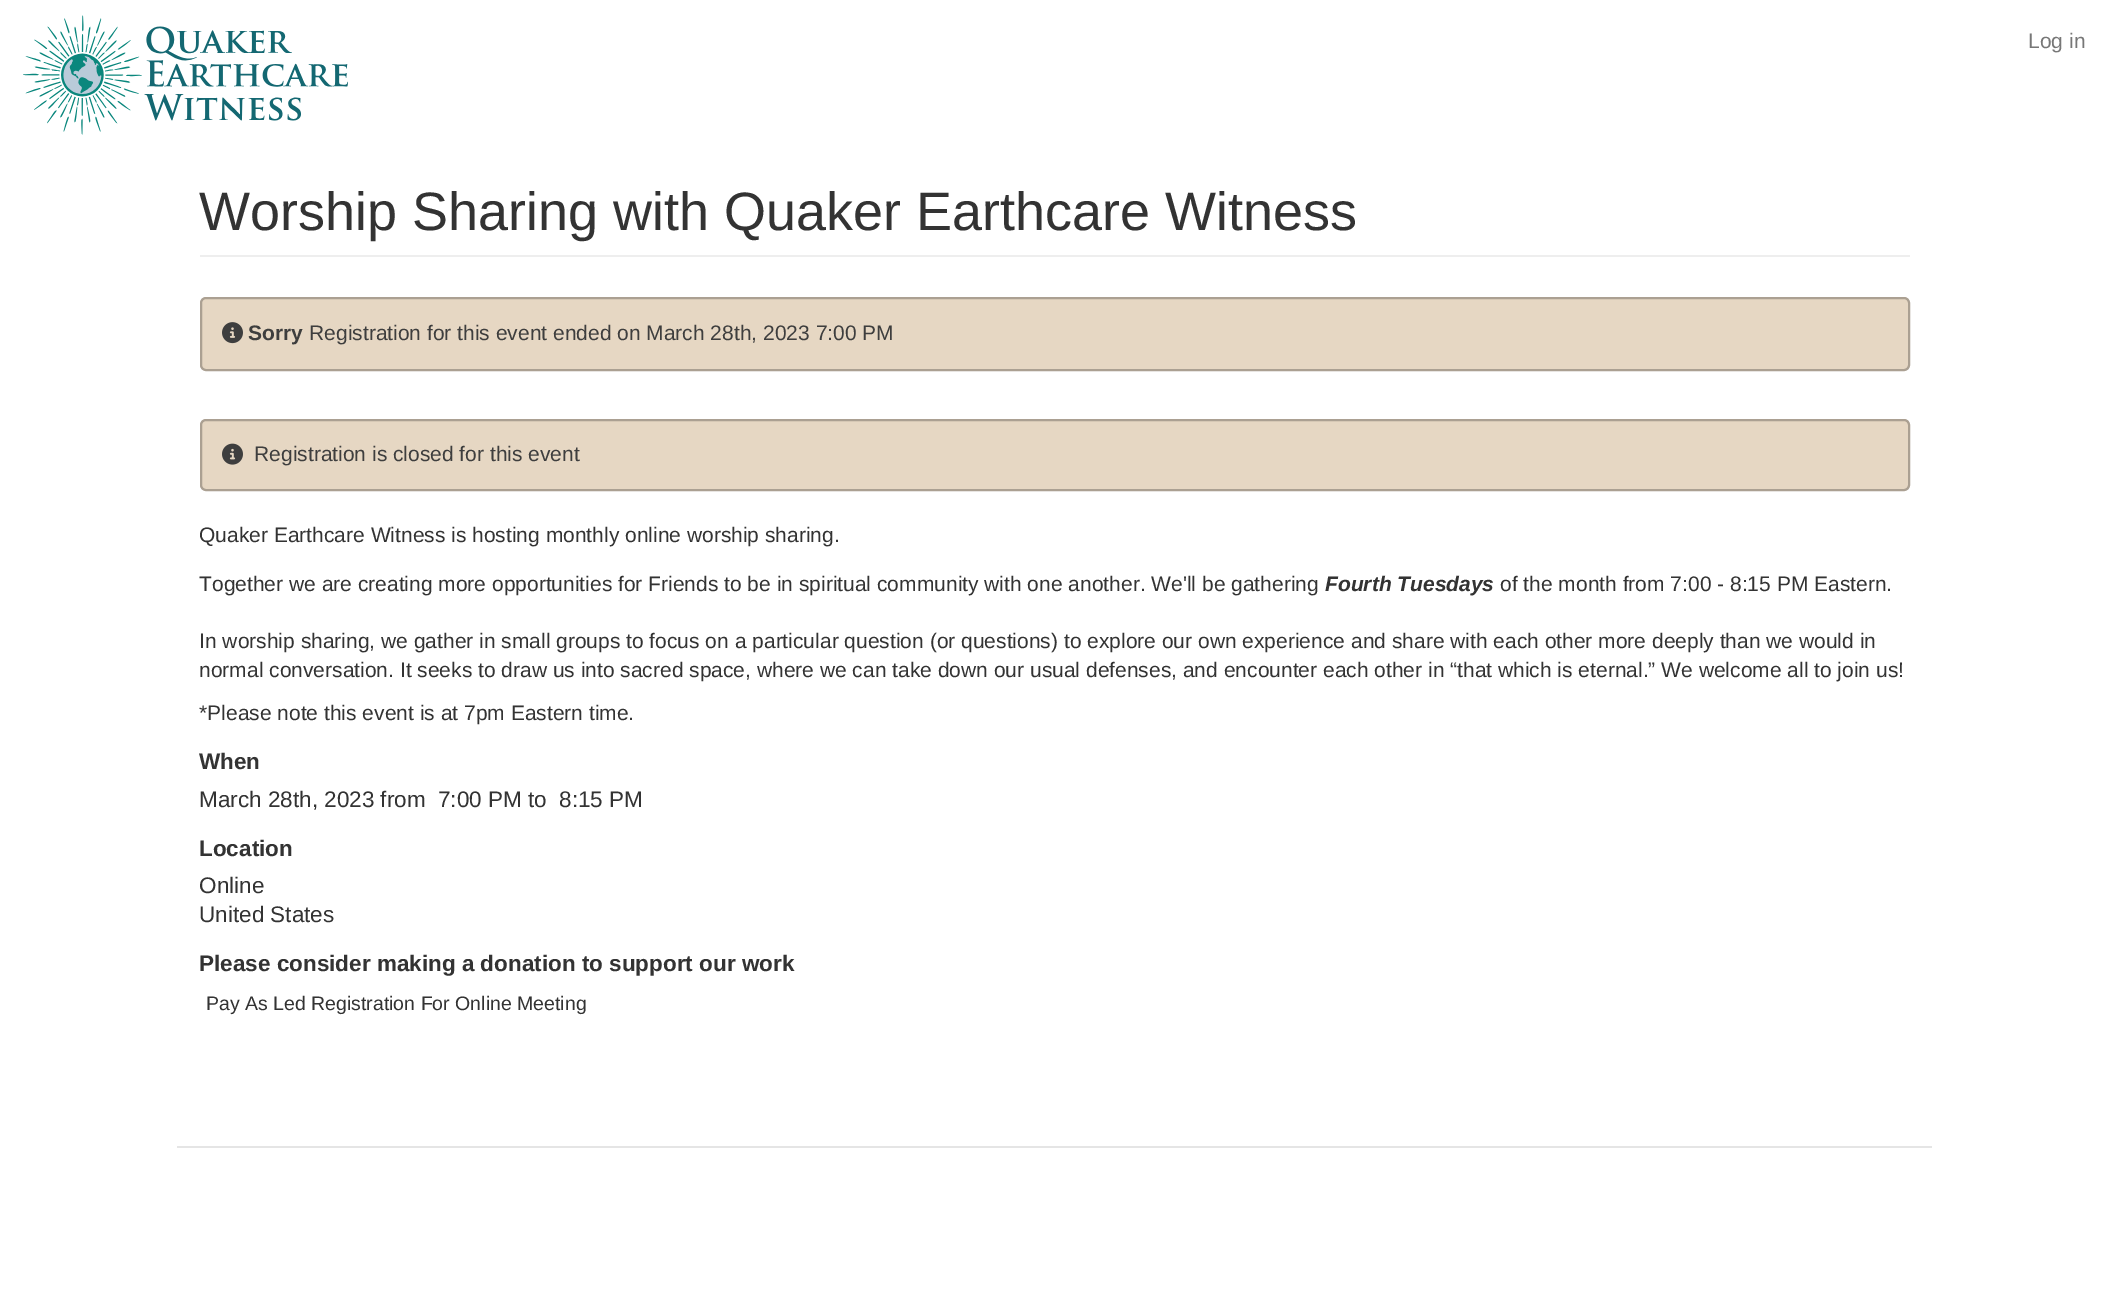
%!PS
<< /PageSize [2107 1316] >> setpagedevice
/rgb { dup -16 bitshift 255 div exch dup -8 bitshift 255 and 255 div exch 255 and 255 div setrgbcolor } def
/font { [ exch dup neg 0 0 3 -1 roll 0 0 ] selectfont } def
/text { moveto show } def
/roundrect { 5 dict begin { /r /h /w /y /x } { exch def } forall
  x r add y moveto x w add y 2 copy h add r arct x w add y h add x 1 index r arct
  x y h add x y r arct x y 2 copy exch w add exch r arct closepath end } def
/picture { 5 dict begin { /h /w /y /x /name } { exch def } forall
  gsave x y translate w h scale
  w h 8 [w 0 0 h 0 0] name (r) file false 3 colorimage grestore end } def
0 1316 translate 1 -1 scale
4 setmiterlimit
/s1 { /LiberationSans-Regular 21 font 16#777777 rgb } def
/s2 { /LiberationSans-Regular 54 font 16#333333 rgb } def
/s3 { /LiberationSans-Bold 21 font 16#3E3E3E rgb } def
/s4 { /LiberationSans-Regular 21 font 16#3E3E3E rgb } def
/s5 { /LiberationSans-Regular 21 font 16#333333 rgb } def
/s6 { /LiberationSans-BoldItalic 21 font 16#333333 rgb } def
/s7 { /LiberationSans-Bold 22.5 font 16#333333 rgb } def
/s8 { /LiberationSans-Regular 22.5 font 16#333333 rgb } def
/s9 { /LiberationSans-Regular 19.5 font 16#333333 rgb } def
16#FFFFFF rgb
0 0 2107 1316 rectfill
(pic1.raw) 23 15 325 120 picture
s1
(Log in) 2028 48 text
16#EEEEEE rgb
200 255 1710 2 rectfill
s2
(Worship Sharing with Quaker Earthcare Witness) 199 230 text
16#E6D7C3 rgb
201 298 1708 72 5 roundrect gsave fill grestore
16#ABA092 rgb
2 setlinewidth
stroke
(pic2.raw) 222 322 21 22 picture
s3
(Sorry) 248 340 text
s4
(Registration for this event ended on March 28th, 2023 7:00 PM) 309 340 text
16#E6D7C3 rgb
201 420 1708 70 5 roundrect gsave fill grestore
16#ABA092 rgb
stroke
(pic3.raw) 222 443 21 22 picture
s4
(Registration is closed for this event) 254 461 text
s5
(Quaker Earthcare Witness is hosting monthly online worship sharing.) 199 542 text
(Together we are creating more opportunities for Friends to be in spiritual community with one another. We'll be gathering) 199 591 text
s6
(Fourth Tuesdays) 1325 591 text
s5
(of the month from 7:00 - 8:15 PM Eastern.) 1500 591 text
(In worship sharing, we gather in small groups to focus on a particular question \(or questions\) to explore our own experience and share with each other more deeply than we would in) 199 648 text
(normal conversation. It seeks to draw us into sacred space, where we can take down our usual defenses, and encounter each other in “that which is eternal.” We welcome all to join us!) 199 677 text
(*Please note this event is at 7pm Eastern time.) 199 720 text
s7
(When) 199 769 text
s8
(March 28th, 2023 from  7:00 PM to  8:15 PM) 199 807 text
s7
(Location) 199 856 text
s8
(Online) 199 893 text
(United States) 199 922 text
s7
(Please consider making a donation to support our work) 199 971 text
s9
(Pay As Led Registration For Online Meeting) 206 1010 text
16#E5E5E5 rgb
177 1146 1755 2 rectfill
showpage
